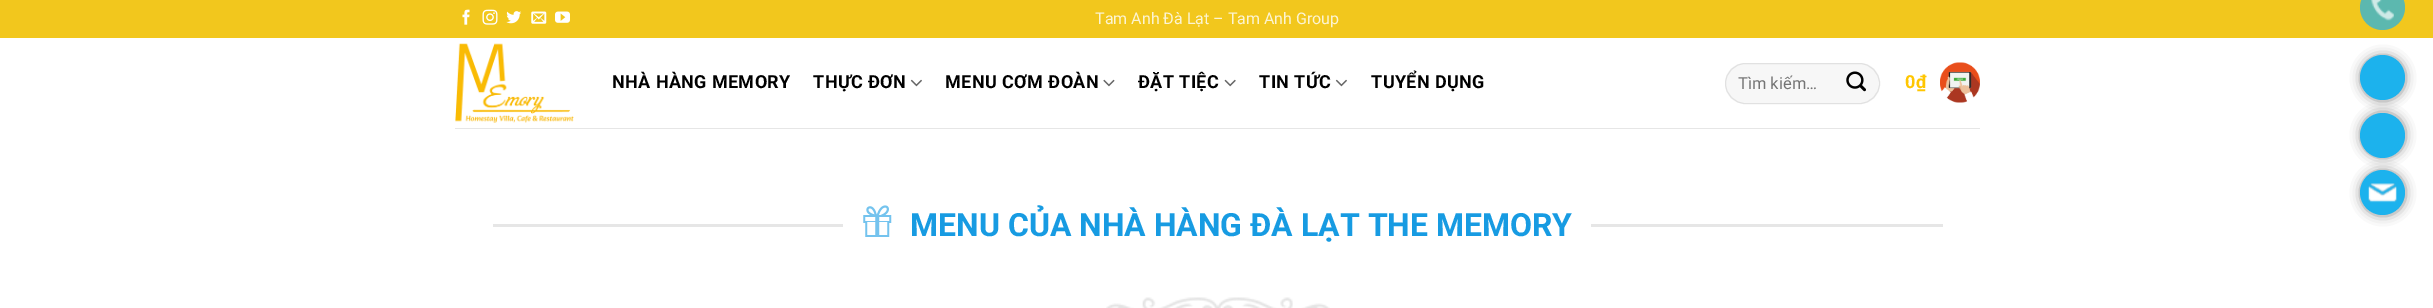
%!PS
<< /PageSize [2433 308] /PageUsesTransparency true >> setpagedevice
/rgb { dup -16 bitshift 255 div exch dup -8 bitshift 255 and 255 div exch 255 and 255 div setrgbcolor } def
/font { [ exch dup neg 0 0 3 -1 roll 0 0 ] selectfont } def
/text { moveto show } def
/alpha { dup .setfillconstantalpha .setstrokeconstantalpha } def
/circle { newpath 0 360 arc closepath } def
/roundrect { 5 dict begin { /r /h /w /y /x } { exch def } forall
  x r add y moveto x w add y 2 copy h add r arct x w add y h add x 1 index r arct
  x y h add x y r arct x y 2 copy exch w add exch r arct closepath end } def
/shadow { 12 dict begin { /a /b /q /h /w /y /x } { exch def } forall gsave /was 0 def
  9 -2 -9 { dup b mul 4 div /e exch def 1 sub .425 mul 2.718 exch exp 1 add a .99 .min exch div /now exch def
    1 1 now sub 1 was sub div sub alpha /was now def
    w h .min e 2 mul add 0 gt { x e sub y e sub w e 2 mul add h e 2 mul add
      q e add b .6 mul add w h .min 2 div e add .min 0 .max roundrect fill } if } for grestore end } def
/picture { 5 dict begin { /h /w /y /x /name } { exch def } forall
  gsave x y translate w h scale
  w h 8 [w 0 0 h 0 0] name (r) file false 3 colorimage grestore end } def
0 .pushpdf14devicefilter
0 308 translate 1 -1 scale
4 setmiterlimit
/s1 { /Roboto-Regular 16 font 16#FCF4D2 rgb } def
/s2 { /Roboto-Regular 16.5 font 16#757575 rgb } def
/s3 { /Roboto-Bold 32 font 16#179BE2 rgb } def
16#FFFFFF rgb
0 0 2433 308 rectfill
16#F2C71D rgb
0 0 2433 38 rectfill
(pic1.raw) 462 9 8 16 picture
(pic2.raw) 482 9 16 16 picture
(pic3.raw) 506 11 16 13 picture
(pic4.raw) 531 11 16 13 picture
(pic5.raw) 555 11 15 12 picture
s1
(Tam Anh Đà Lạt – Tam Anh Group) 1095 24 text
(pic6.raw) 455 43 119 80 picture
/Roboto-Bold 18 font
16#000000 rgb
612 88 moveto 0.4 0 (NHÀ HÀNG MEMORY) ashow
813 88 moveto 0.4 0 (THỰC ĐƠN) ashow
(pic7.raw) 910 79 12 8 picture
945 88 moveto 0.4 0 (MENU CƠM ĐOÀN) ashow
(pic8.raw) 1103 79 12 8 picture
1138 88 moveto 0.4 0 (ĐẶT TIỆC) ashow
(pic9.raw) 1224 79 12 8 picture
1259 88 moveto 0.4 0 (TIN TỨC) ashow
(pic7.raw) 1335 79 12 8 picture
1371 88 moveto 0.4 0 (TUYỂN DỤNG) ashow
16#F7F7F7 rgb
1725 63 155 41 20.5 roundrect fill
0.09 alpha
16#000000 rgb
1725.5 63.5 154 40 20 roundrect stroke
1 alpha
s2
(Tìm kiếm…) 1738 89 text
(pic10.raw) 1846 71 20 21 picture
/Roboto-Bold 18 font
16#FFC601 rgb
1905 88 moveto 0.4 0 (0₫) ashow
(pic11.raw) 1940 62 40 41 picture
16#E6E6E6 rgb
455 128 1525 1 rectfill
493 224 350 3 rectfill
(pic12.raw) 863 205 29 32 picture
s3
(MENU CỦA NHÀ HÀNG ĐÀ LẠT THE MEMORY) 910 236 text
16#E6E6E6 rgb
1591 224 352 3 rectfill
(pic13.raw) 1106 297 224 11 picture
16#5CB8AF rgb
2382.5 7.5 22.5 circle fill
(pic14.raw) 2371 0 23 21 picture
16#000000 rgb
2363 58 40 40 20 6 0.7 shadow
16#1CB2ED rgb
2382.5 77.5 22.5 circle fill
16#000000 rgb
2363 115 40 40 20 6 0.7 shadow
16#1CB2ED rgb
2382.5 135.5 22.5 circle fill
16#000000 rgb
2363 173 40 40 20 6 0.7 shadow
16#1CB2ED rgb
2382.5 192.5 22.5 circle fill
(pic15.raw) 2368 183 29 20 picture
.poppdf14devicefilter showpage
